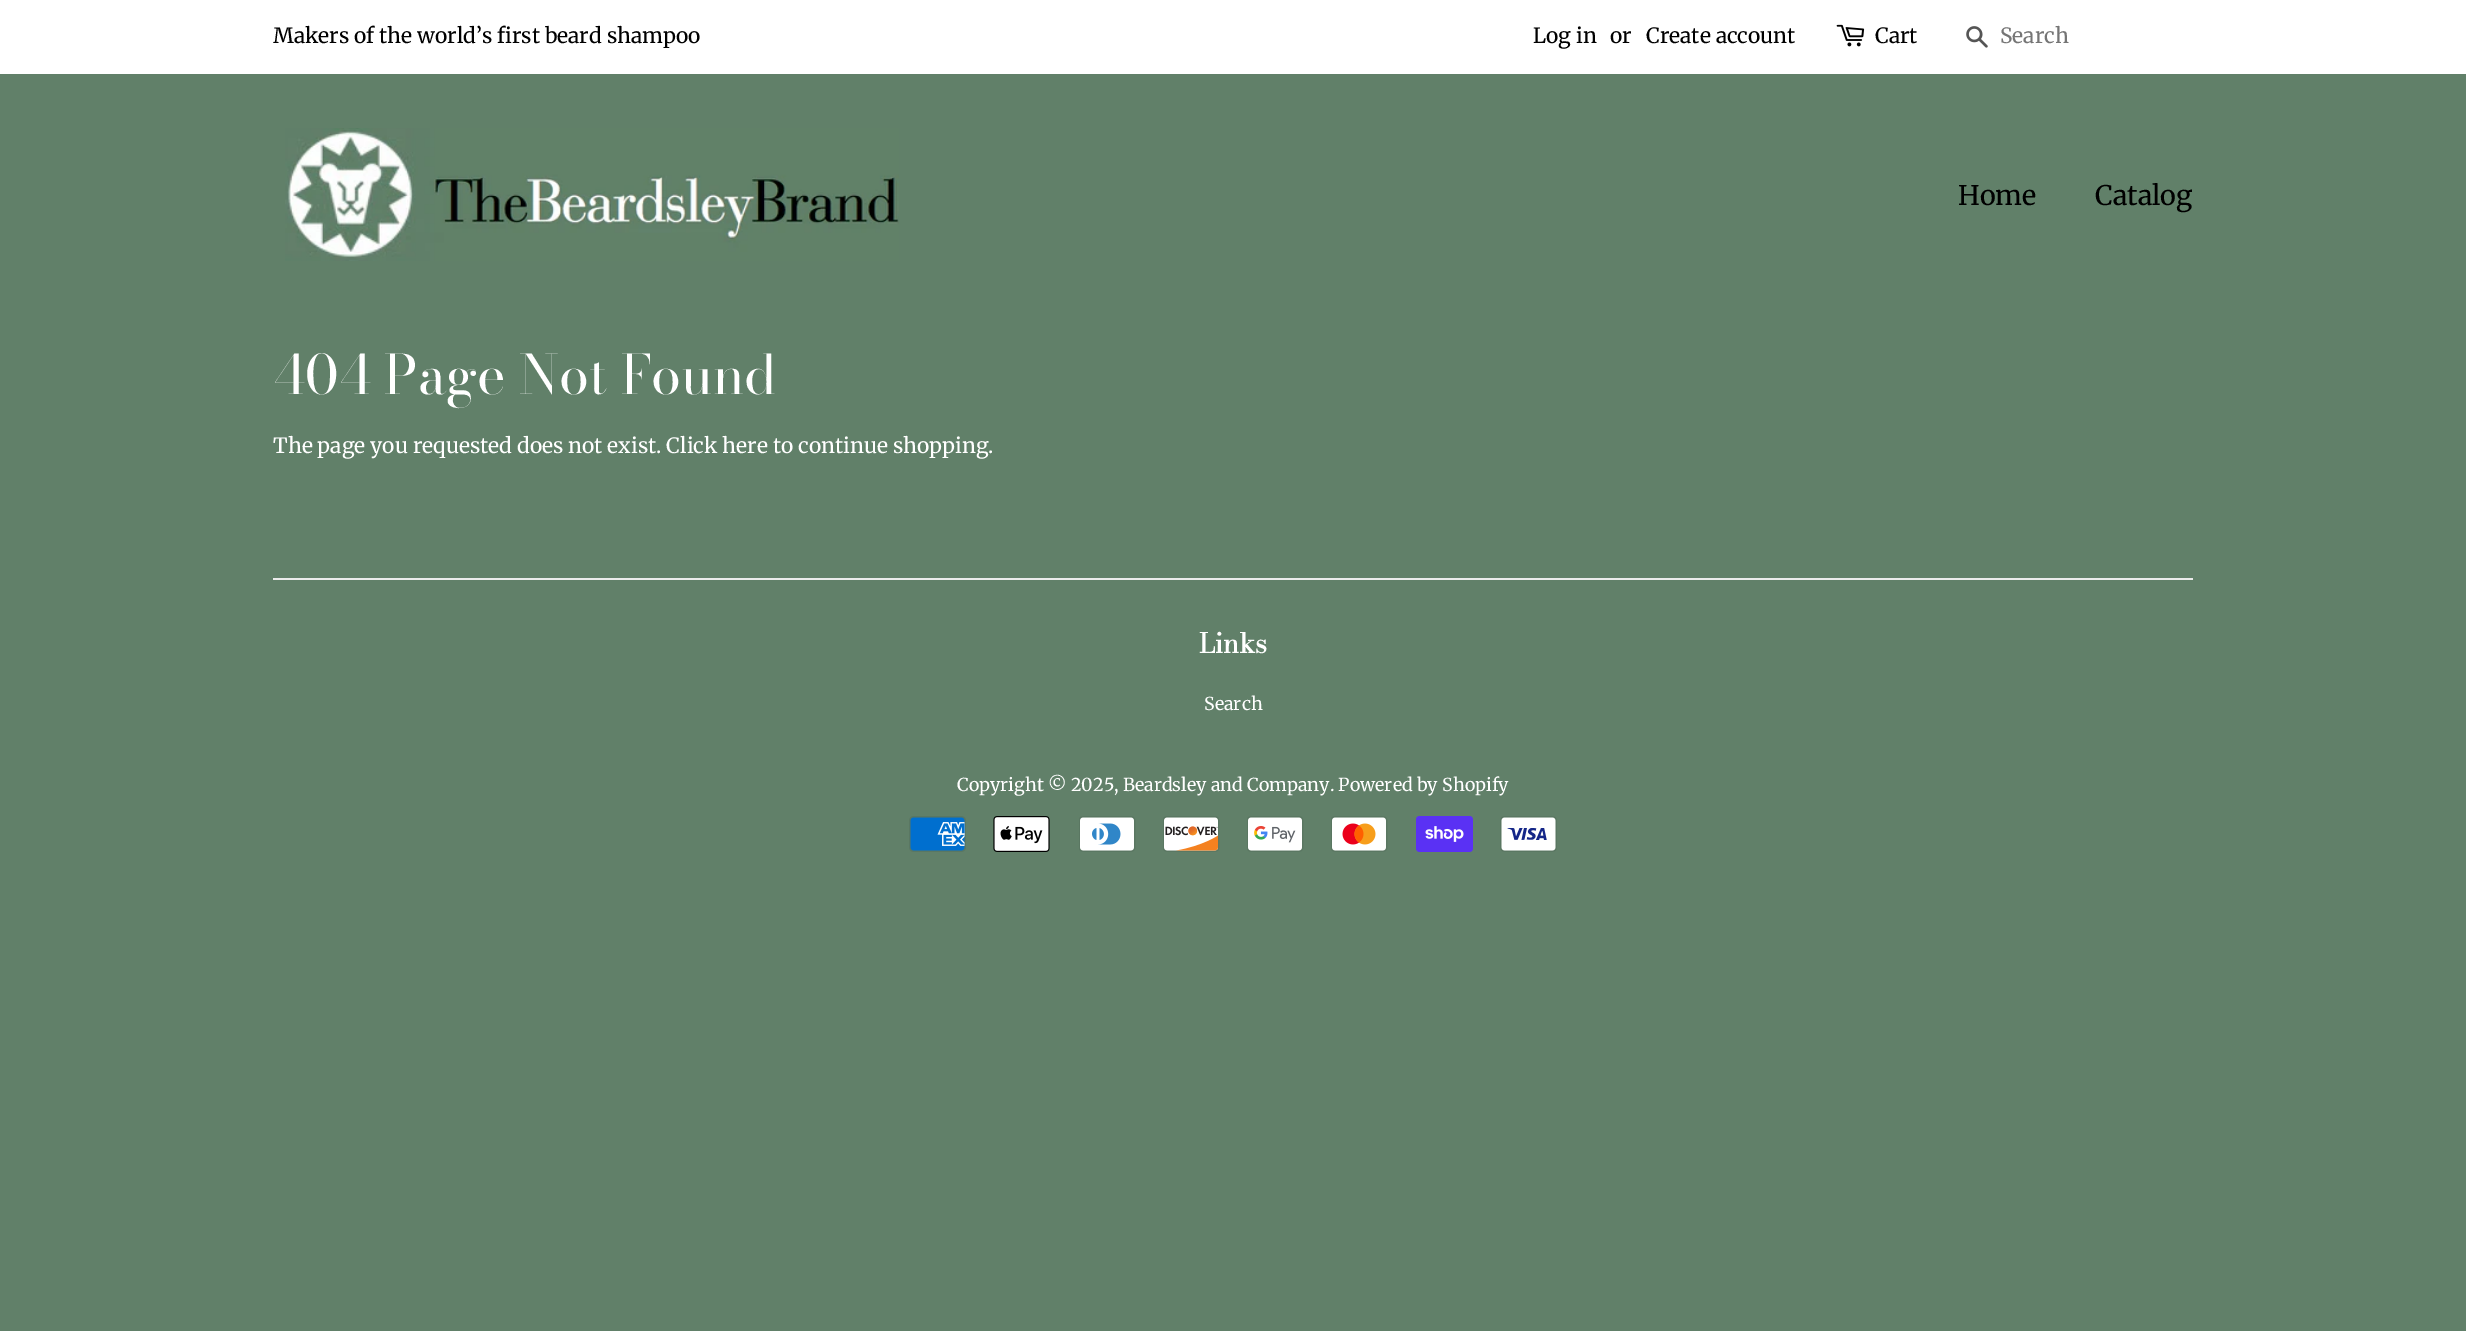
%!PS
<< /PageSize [2466 1331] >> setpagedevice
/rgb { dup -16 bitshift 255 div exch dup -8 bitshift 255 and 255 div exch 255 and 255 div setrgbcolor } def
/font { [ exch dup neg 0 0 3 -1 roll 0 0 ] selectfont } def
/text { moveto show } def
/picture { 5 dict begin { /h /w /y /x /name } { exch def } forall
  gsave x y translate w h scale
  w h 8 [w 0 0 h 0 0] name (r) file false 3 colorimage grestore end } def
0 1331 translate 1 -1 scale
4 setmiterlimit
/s1 { /Merriweather-Regular 21 font 16#000000 rgb } def
/s2 { /Merriweather-Regular 21 font 16#757575 rgb } def
/s3 { /Merriweather-Regular 27 font 16#000000 rgb } def
/s4 { /BodoniModa-Regular 54 font 16#FFFFFF rgb } def
/s5 { /Merriweather-Regular 21 font 16#FFFFFF rgb } def
/s6 { /BodoniModa-Bold 27 font 16#FFFFFF rgb } def
/s7 { /Merriweather-Regular 17.85 font 16#FFFFFF rgb } def
16#618069 rgb
0 0 2466 1331 rectfill
16#FFFFFF rgb
0 0 2466 74 rectfill
s1
(Makers of the world’s first beard shampoo) 273 43 text
(Log in) 1533 43 text
(or) 1610 43 text
(Create account) 1646 43 text
(pic1.raw) 1836 24 29 23 picture
(Cart) 1875 43 text
(pic2.raw) 1966 26 22 22 picture
s2
(Search) 2000 43 text
(pic3.raw) 285 128 614 133 picture
s3
(Home) 1958 205 text
(Catalog) 2095 205 text
s4
(404 Page Not Found) 273 394 text
s5
(The page you requested does not exist. Click here to continue shopping.) 273 453 text
16#EBEBEB rgb
273 578 1920 2 rectfill
s6
(Links) 1199 653 text
s7
(Search) 1204 710 text
(Copyright © 2025, Beardsley and Company. Powered by Shopify) 957 791 text
(pic4.raw) 909 816 57 36 picture
(pic5.raw) 993 816 57 36 picture
(pic6.raw) 1079 816 57 36 picture
(pic7.raw) 1163 816 57 36 picture
(pic8.raw) 1247 816 57 36 picture
(pic9.raw) 1331 816 57 36 picture
(pic10.raw) 1416 816 57 36 picture
(pic11.raw) 1500 816 57 36 picture
showpage
